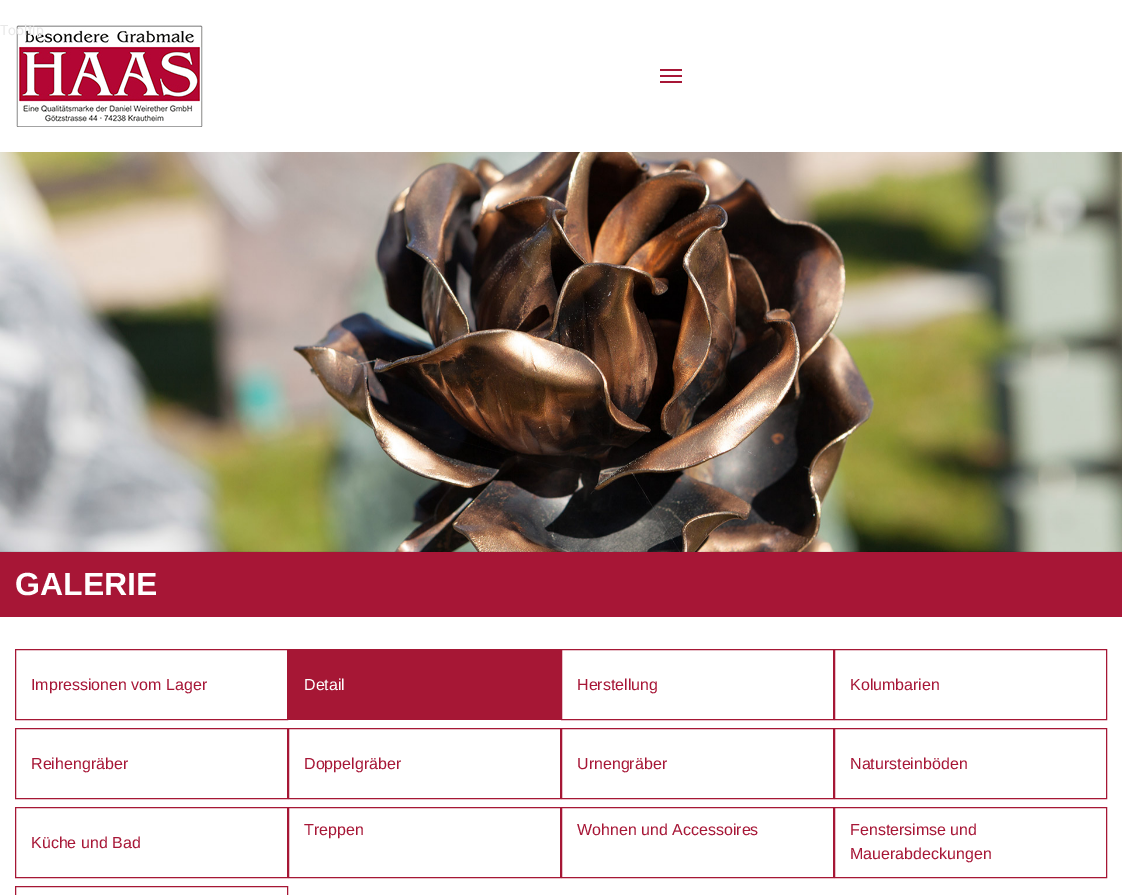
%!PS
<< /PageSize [1122 895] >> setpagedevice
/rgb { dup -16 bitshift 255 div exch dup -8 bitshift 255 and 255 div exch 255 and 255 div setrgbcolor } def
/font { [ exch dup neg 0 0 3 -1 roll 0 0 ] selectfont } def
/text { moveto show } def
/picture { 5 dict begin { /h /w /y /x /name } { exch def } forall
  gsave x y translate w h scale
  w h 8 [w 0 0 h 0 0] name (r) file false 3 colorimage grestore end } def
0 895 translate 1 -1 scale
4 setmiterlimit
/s1 { /Roboto-Regular 14 font 16#E8E8E8 rgb } def
/s2 { /LiberationSans-Bold 32 font 16#FFFFFF rgb } def
/s3 { /LiberationSans-Regular 16 font 16#A71636 rgb } def
/s4 { /LiberationSans-Regular 16 font 16#FFFFFF rgb } def
16#FFFFFF rgb
0 0 1122 895 rectfill
(pic1.raw) 16 25 187 102 picture
s1
(Tooltip) 0 35 text
16#A71636 rgb
660 69 22 2 rectfill
660 75 22 2 rectfill
660 81 22 2 rectfill
(pic2.raw) 0 152 1122 400 picture
0 552 1122 65 rectfill
s2
(GALERIE) 15 595 text
16#A61735 rgb
15.5 649.5 272 70 rectstroke
s3
(Impressionen vom Lager) 31 690 text
16#A61735 rgb
288 649 273 71 rectfill
s4
(Detail) 304 690 text
16#A61735 rgb
561.5 649.5 272 70 rectstroke
s3
(Herstellung) 577 690 text
16#A61735 rgb
834.5 649.5 272 70 rectstroke
s3
(Kolumbarien) 850 690 text
16#A61735 rgb
15.5 728.5 272 70 rectstroke
s3
(Reihengräber) 31 769 text
16#A61735 rgb
288.5 728.5 272 70 rectstroke
s3
(Doppelgräber) 304 769 text
16#A61735 rgb
561.5 728.5 272 70 rectstroke
s3
(Urnengräber) 577 769 text
16#A61735 rgb
834.5 728.5 272 70 rectstroke
s3
(Natursteinböden) 850 769 text
16#A61735 rgb
288.5 807.5 272 70 rectstroke
s3
(Treppen) 304 835 text
16#A61735 rgb
561.5 807.5 272 70 rectstroke
s3
(Wohnen und Accessoires) 577 835 text
16#A61735 rgb
834.5 807.5 272 70 rectstroke
s3
(Fenstersimse und) 850 835 text
(Mauerabdeckungen) 850 859 text
16#A61735 rgb
15.5 807.5 272 70 rectstroke
s3
(Küche und Bad) 31 848 text
16#A61735 rgb
15.5 886.5 272 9 rectstroke
showpage
